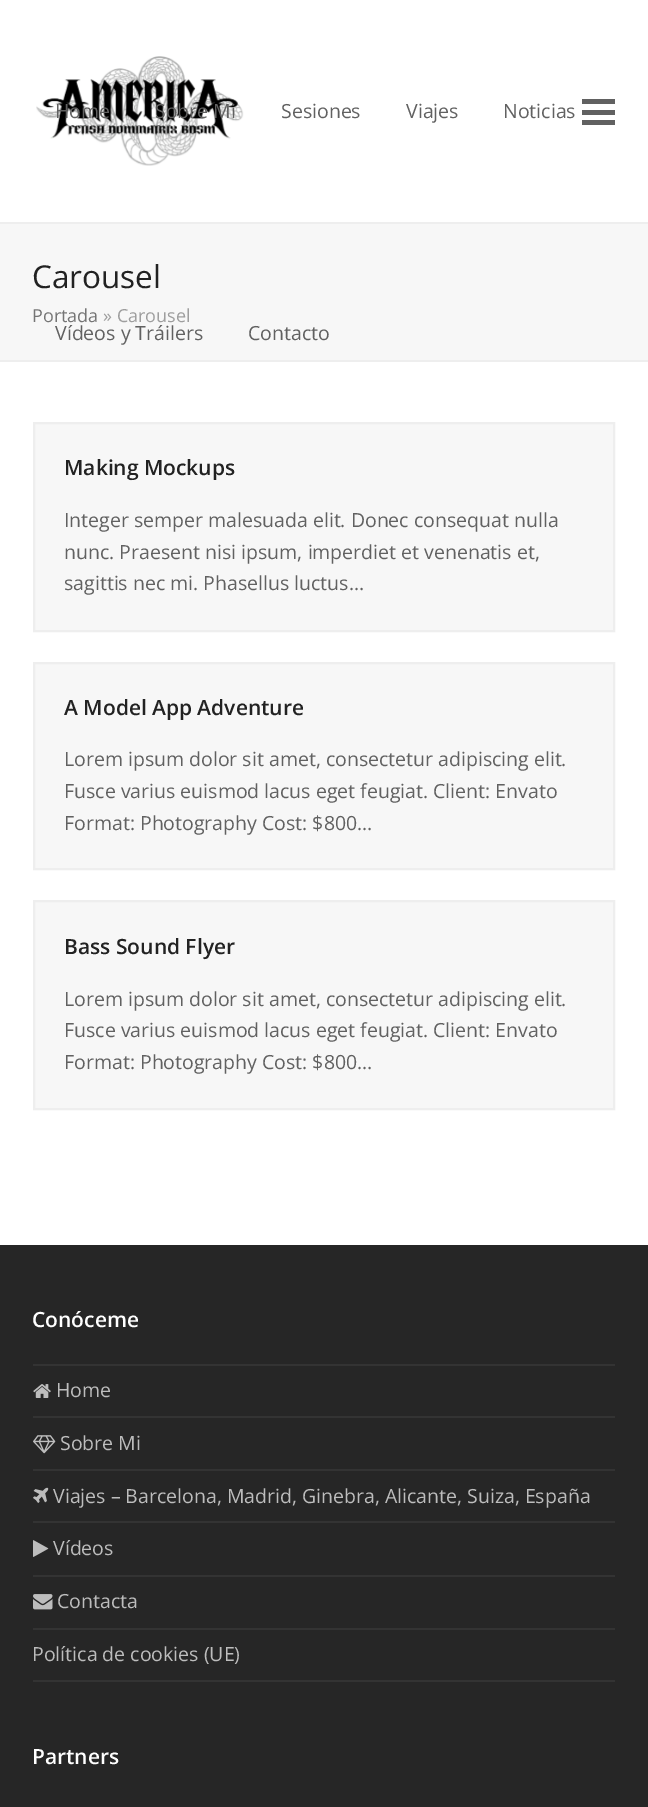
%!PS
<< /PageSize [648 1807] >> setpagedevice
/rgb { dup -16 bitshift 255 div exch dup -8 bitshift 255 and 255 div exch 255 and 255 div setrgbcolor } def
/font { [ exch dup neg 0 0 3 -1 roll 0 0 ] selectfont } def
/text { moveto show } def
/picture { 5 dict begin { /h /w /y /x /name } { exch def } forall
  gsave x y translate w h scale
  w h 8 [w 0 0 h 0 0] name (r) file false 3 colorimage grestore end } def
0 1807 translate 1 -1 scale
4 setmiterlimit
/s1 { /OpenSans-Regular 19.5 font 16#616161 rgb } def
/s2 { /OpenSans-Regular 31.5 font 16#222222 rgb } def
/s3 { /OpenSans-Regular 18 font 16#757575 rgb } def
/s4 { /OpenSans-Regular 18 font 16#9E9E9E rgb } def
/s5 { /OpenSans-SemiBold 21 font 16#222222 rgb } def
/s6 { /OpenSans-SemiBold 21 font 16#FFFFFF rgb } def
/s7 { /OpenSans-Regular 19.5 font 16#BDBDBD rgb } def
16#FFFFFF rgb
0 0 648 1807 rectfill
(pic1.raw) 36 56 208 110 picture
16#616161 rgb
582 110 33 5 rectfill
582 99 33 5 rectfill
582 120 33 5 rectfill
s1
(Home) 55 118 text
(Sobre Mi) 155 118 text
(Sesiones) 281 118 text
(Viajes) 406 118 text
(Noticias) 503 118 text
16#F7F7F7 rgb
0 224 648 136 rectfill
s1
(Vídeos y Tráilers) 55 340 text
(Contacto) 248 340 text
16#EEEEEE rgb
0 222 648 2 rectfill
0 360 648 2 rectfill
s2
(Carousel) 32 288 text
s3
(Portada) 32 322 text
s4
(» Carousel) 103 322 text
16#F7F7F7 rgb
34 423 moveto 614 423 lineto 614 631 lineto 34 631 lineto closepath gsave fill grestore
16#EEEEEE rgb
2 setlinewidth
stroke
s5
(Making Mockups) 64 475 text
s1
(Integer semper malesuada elit. Donec consequat nulla) 64 527 text
(nunc. Praesent nisi ipsum, imperdiet et venenatis et,) 64 559 text
(sagittis nec mi. Phasellus luctus…) 64 590 text
16#F7F7F7 rgb
34 663 moveto 614 663 lineto 614 869 lineto 34 869 lineto closepath gsave fill grestore
16#EEEEEE rgb
stroke
s5
(A Model App Adventure) 64 715 text
s1
(Lorem ipsum dolor sit amet, consectetur adipiscing elit.) 64 766 text
(Fusce varius euismod lacus eget feugiat. Client: Envato) 64 798 text
(Format: Photography Cost: $800…) 64 830 text
16#F7F7F7 rgb
34 901 moveto 614 901 lineto 614 1109 lineto 34 1109 lineto closepath gsave fill grestore
16#EEEEEE rgb
stroke
s5
(Bass Sound Flyer) 64 954 text
s1
(Lorem ipsum dolor sit amet, consectetur adipiscing elit.) 64 1006 text
(Fusce varius euismod lacus eget feugiat. Client: Envato) 64 1037 text
(Format: Photography Cost: $800…) 64 1069 text
16#262626 rgb
0 1245 648 562 rectfill
s6
(Conóceme) 32 1327 text
16#333333 rgb
33 1364 582 2 rectfill
33 1416 582 2 rectfill
(pic2.raw) 33 1384 18 14 picture
s7
(Home) 56 1397 text
16#333333 rgb
33 1469 582 2 rectfill
(pic3.raw) 33 1435 23 19 picture
s7
(Sobre Mi) 60 1450 text
16#333333 rgb
33 1521 582 2 rectfill
(pic4.raw) 33 1487 16 16 picture
s7
(Viajes – Barcelona, Madrid, Ginebra, Alicante, Suiza, España) 53 1503 text
16#333333 rgb
33 1575 582 2 rectfill
(pic5.raw) 33 1540 16 17 picture
s7
(Vídeos) 53 1555 text
16#333333 rgb
33 1628 582 2 rectfill
(pic6.raw) 33 1594 20 16 picture
s7
(Contacta) 57 1608 text
16#333333 rgb
33 1680 582 2 rectfill
s7
(Política de cookies \(UE\)) 32 1661 text
s6
(Partners) 32 1764 text
showpage
